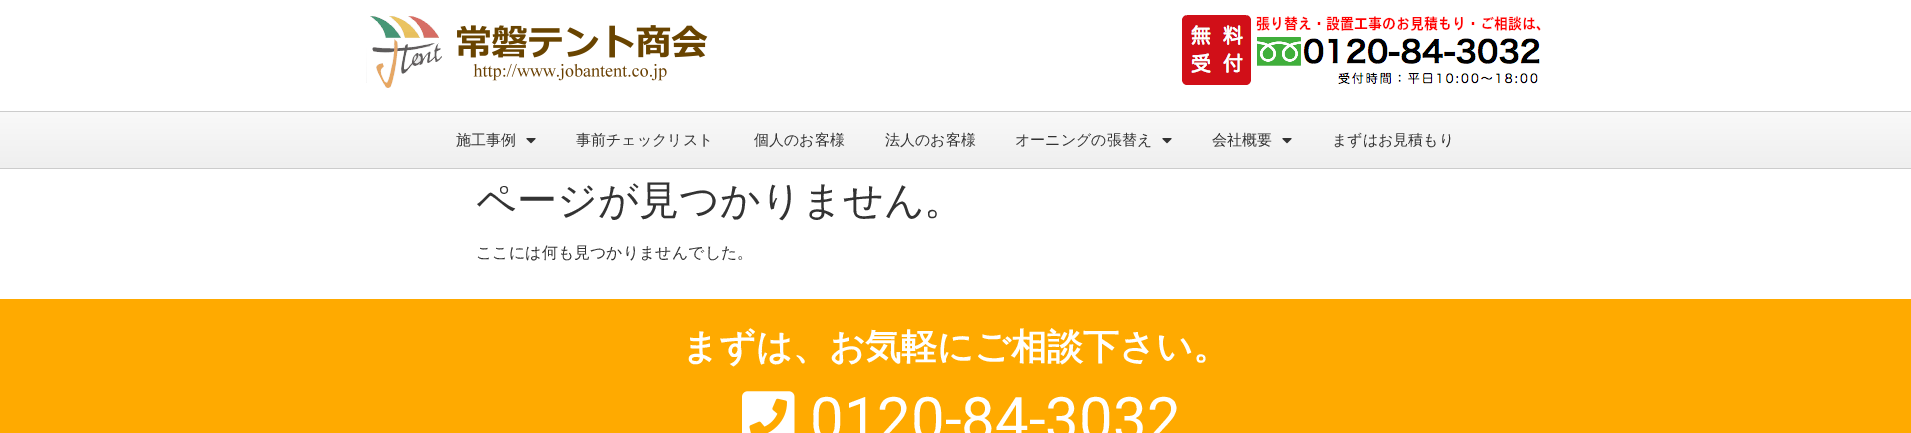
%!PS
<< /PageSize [1911 433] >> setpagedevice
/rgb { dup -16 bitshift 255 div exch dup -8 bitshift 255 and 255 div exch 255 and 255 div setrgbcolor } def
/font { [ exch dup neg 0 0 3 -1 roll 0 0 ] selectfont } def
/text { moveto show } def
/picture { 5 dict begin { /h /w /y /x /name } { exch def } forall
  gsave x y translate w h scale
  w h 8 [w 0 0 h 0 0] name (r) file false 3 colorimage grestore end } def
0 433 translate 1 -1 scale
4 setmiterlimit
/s1 { /WenQuanYiZenHei-Medium 15 font 16#333333 rgb } def
/s2 { /WenQuanYiZenHei-Medium 40 font 16#333333 rgb } def
/s3 { /WenQuanYiZenHei-Medium 16 font 16#333333 rgb } def
/s4 { /WenQuanYiZenHei-Bold 36 font 16#FFFFFF rgb } def
/s5 { /Roboto-Regular 60 font 16#FFFFFF rgb } def
16#FFFFFF rgb
0 0 1911 433 rectfill
(pic1.raw) 366 16 342 72 picture
(pic2.raw) 1182 15 359 70 picture
gsave 0 112 moveto 1911 112 lineto 1911 168 lineto 0 168 lineto closepath clip newpath
<< /ShadingType 2 /ColorSpace /DeviceRGB /Coords [956 112 956 168] /Extend [true true] /Function << /FunctionType 2 /Domain [0 1] /C0 [0.976 0.976 0.976] /C1 [0.937 0.937 0.937] /N 1 >> >> shfill grestore
16#CCCCCC rgb
0 111 1911 1 rectfill
0 168 1911 1 rectfill
s1
(施工事例) 456 145 text
(pic3.raw) 526 138 10 6 picture
(事前チェックリスト) 576 145 text
(個人のお客様) 754 145 text
(法人のお客様) 885 145 text
(オーニングの張替え) 1015 145 text
(pic3.raw) 1162 138 10 6 picture
(会社概要) 1212 145 text
(pic3.raw) 1282 138 10 6 picture
(まずはお見積もり) 1332 145 text
s2
(ページが見つかりません。) 476 214 text
s3
(ここには何も見つかりませんでした。) 476 258 text
gsave 0 299 moveto 1911 299 lineto 1911 433 lineto 0 433 lineto closepath clip newpath
<< /ShadingType 2 /ColorSpace /DeviceRGB /Coords [956 299 956 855] /Extend [true true] /Function << /FunctionType 3 /Domain [0 1] /Functions [<< /FunctionType 2 /Domain [0 1] /C0 [1 0.667 0] /C1 [1 0.667 0] /N 1 >> << /FunctionType 2 /Domain [0 1] /C0 [1 0.667 0] /C1 [1 0.875 0.169] /N 1 >>] /Bounds [0.4] /Encode [0 1 0 1] >> >> shfill grestore
s4
(まずは、お気軽にご相談下さい。) 682 359 text
(pic4.raw) 742 391 53 42 picture
s5
(0120-84-3032) 810 440 text
showpage
